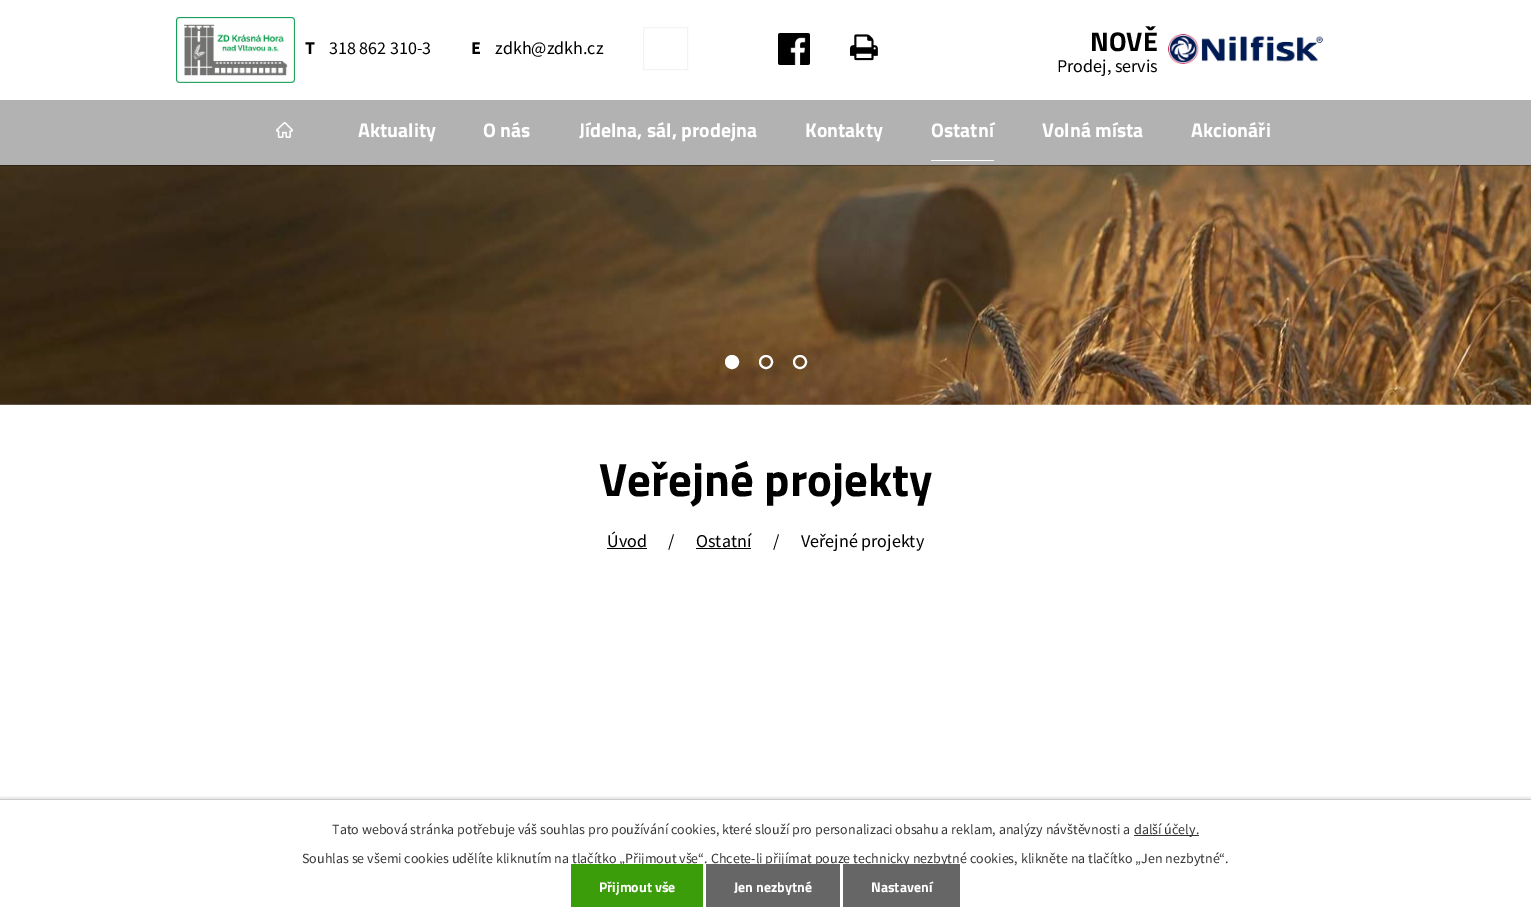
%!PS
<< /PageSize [1531 907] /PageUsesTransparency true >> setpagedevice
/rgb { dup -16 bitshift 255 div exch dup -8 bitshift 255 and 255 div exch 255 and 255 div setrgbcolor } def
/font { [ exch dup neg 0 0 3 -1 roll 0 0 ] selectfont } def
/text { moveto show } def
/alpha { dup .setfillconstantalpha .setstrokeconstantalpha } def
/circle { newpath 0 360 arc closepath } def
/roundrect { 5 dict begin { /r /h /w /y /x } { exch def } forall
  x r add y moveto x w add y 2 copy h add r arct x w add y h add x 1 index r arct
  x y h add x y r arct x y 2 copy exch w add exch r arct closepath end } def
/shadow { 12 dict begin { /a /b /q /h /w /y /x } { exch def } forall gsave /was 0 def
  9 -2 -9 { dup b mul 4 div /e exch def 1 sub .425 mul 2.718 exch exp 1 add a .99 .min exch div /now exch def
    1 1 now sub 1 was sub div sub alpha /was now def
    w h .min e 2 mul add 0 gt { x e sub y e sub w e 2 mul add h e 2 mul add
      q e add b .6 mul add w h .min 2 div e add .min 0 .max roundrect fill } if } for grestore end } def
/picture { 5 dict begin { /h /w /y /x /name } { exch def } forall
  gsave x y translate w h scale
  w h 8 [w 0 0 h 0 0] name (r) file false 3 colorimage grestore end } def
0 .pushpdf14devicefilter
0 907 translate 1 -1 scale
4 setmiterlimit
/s1 { /SourceSansPro-Bold 18 font 16#000000 rgb } def
/s2 { /SourceSansPro-Regular 18 font 16#000000 rgb } def
/s3 { /TitilliumWeb-Bold 27 font 16#000000 rgb } def
/s4 { /TitilliumWeb-Bold 19.75 font 16#FFFFFF rgb } def
/s5 { /TitilliumWeb-Bold 46.75 font 16#000000 rgb } def
/s6 { /SourceSansPro-Regular 14 font 16#333333 rgb } def
/s7 { /TitilliumWeb-Bold 14 font 16#FFFFFF rgb } def
16#FFFFFF rgb
0 0 1531 907 rectfill
(pic1.raw) 176 17 119 66 picture
s1
(T) 305 54 text
s2
(318 862 310-3) 329 54 text
s1
(E) 471 54 text
s2
(zdkh@zdkh.cz) 495 54 text
16#F6F2F1 rgb
643.5 27.5 44 42 rectstroke
(pic2.raw) 778 33 32 32 picture
(pic3.raw) 850 34 28 27 picture
s3
(NOVĚ) 1090 51 text
s2
(Prodej, servis) 1057 72 text
(pic4.raw) 1168 34 155 30 picture
(pic5.raw) 0 165 1531 240 picture
16#FFFFFF rgb
732 362 6 circle gsave fill grestore
2 setlinewidth
stroke
766 362 6 circle stroke
800 362 6 circle stroke
0.3 alpha
16#000000 rgb
0 100 1531 66 rectfill
1 alpha
(pic6.raw) 276 122 17 16 picture
s4
(Aktuality) 358 137 text
(O nás) 483 137 text
(Jídelna, sál, prodejna) 579 137 text
(Kontakty) 805 137 text
931 160 63 1 rectfill
(Ostatní) 931 137 text
(Volná místa) 1042 137 text
(Akcionáři) 1191 137 text
s5
(Veřejné projekty) 599 496 text
s2
(Úvod) 607 547 text
607 548 40 1 rectfill
(/) 668 547 text
(Ostatní) 696 547 text
696 548 55 1 rectfill
(/) 773 547 text
(Veřejné projekty) 801 547 text
gsave
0 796 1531 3 rectclip
0 799 1531 108 0 2.5 0.2 shadow
grestore
16#CCCCCC rgb
0 799 1531 1 rectfill
s6
(Tato webová stránka potřebuje váš souhlas pro používání cookies, které slouží pro personalizaci obsahu a reklam, analýzy návštěvnosti a) 332 834 text
1134 835 65 1 rectfill
(další účely.) 1134 834 text
(Souhlas se všemi cookies udělíte kliknutím na tlačítko „Přijmout vše“. Chcete-li přijímat pouze technicky nezbytné cookies, klikněte na tlačítko „Jen nezbytné“.) 302 863 text
16#3B9D0A rgb
571 864 132 43 rectfill
s7
(Přijmout vše) 599 892 text
16#666666 rgb
706 864 134 43 rectfill
s7
(Jen nezbytné) 734 892 text
16#666666 rgb
843 864 117 43 rectfill
s7
(Nastavení) 871 892 text
.poppdf14devicefilter showpage
